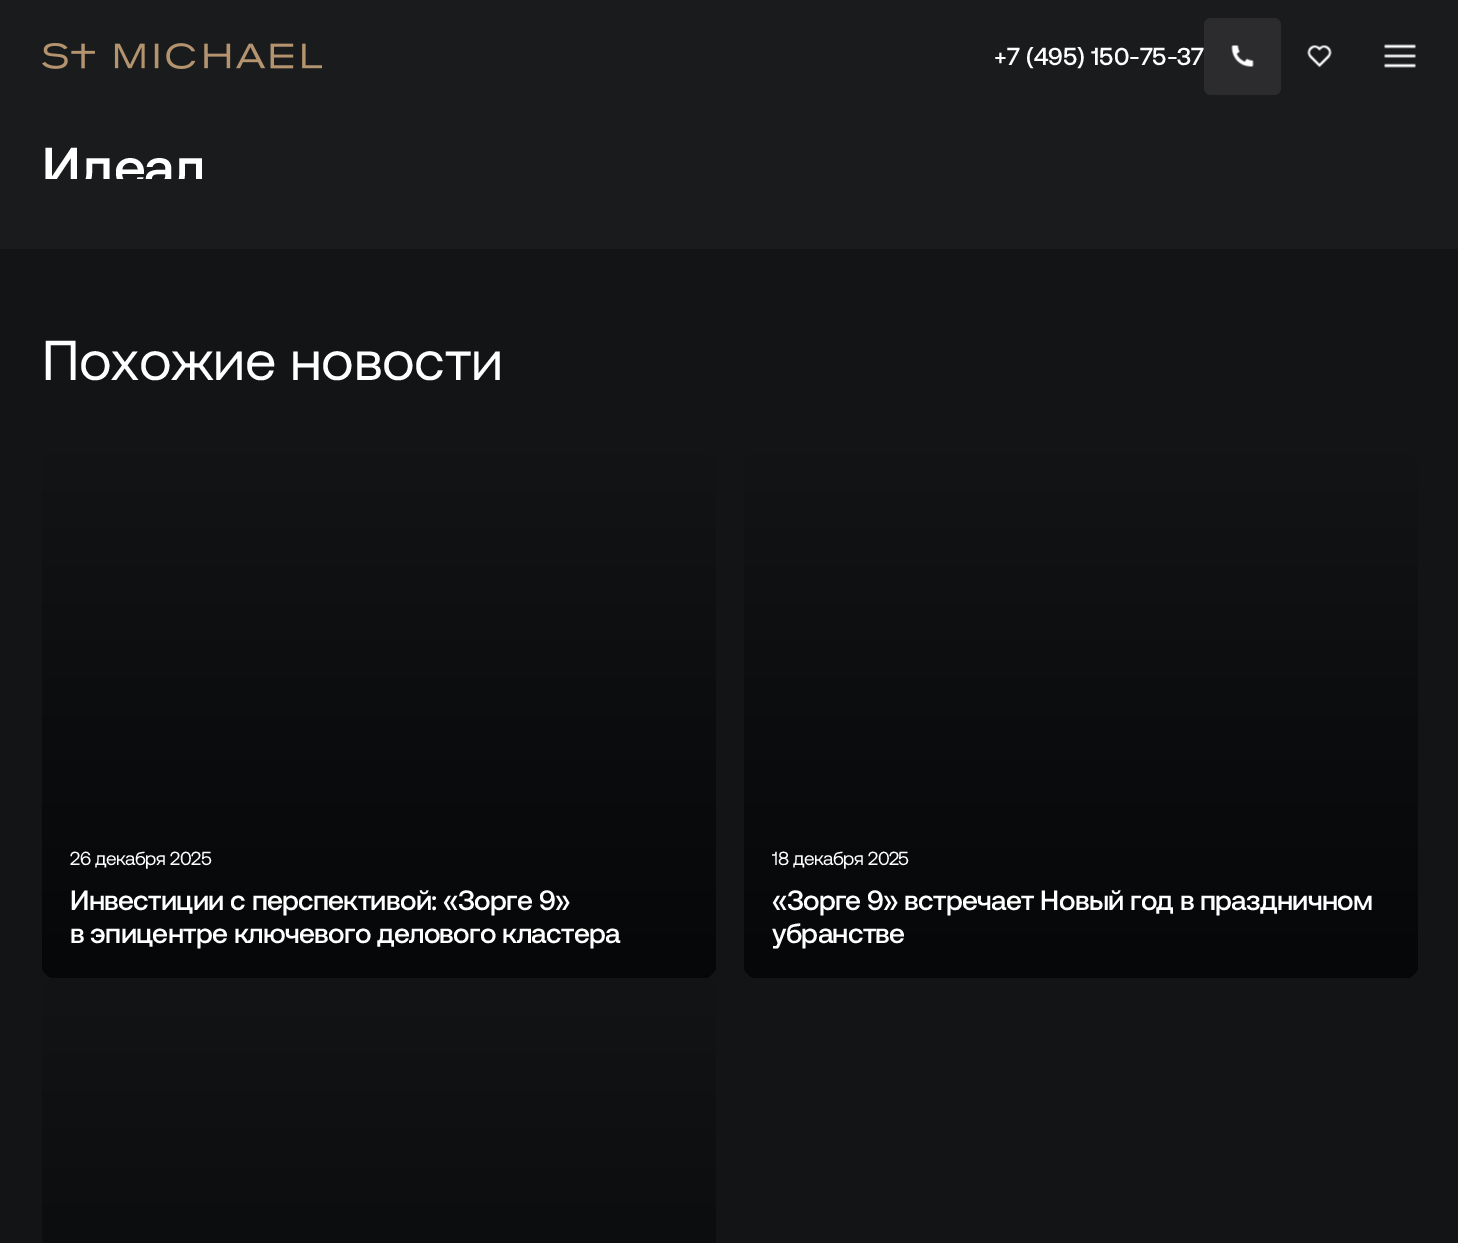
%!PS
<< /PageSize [1458 1243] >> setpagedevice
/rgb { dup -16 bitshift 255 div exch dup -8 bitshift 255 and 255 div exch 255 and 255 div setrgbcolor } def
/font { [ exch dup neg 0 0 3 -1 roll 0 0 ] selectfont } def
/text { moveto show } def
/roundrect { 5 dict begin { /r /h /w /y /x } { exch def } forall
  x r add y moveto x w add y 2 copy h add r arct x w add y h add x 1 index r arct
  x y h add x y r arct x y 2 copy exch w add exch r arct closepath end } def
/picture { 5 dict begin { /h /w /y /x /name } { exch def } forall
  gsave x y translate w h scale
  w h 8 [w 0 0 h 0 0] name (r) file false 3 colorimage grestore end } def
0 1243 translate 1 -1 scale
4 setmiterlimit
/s1 { /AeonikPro-Medium 24.5 font 16#FFFFFF rgb } def
16#191B1D rgb
0 0 1458 1243 rectfill
(pic1.raw) 42 43 280 26 picture
s1
(+7 \(495\) 150-75-37) 994 65 text
16#2C2C2E rgb
1204 18 77 77 7 roundrect fill
(pic2.raw) 1231 45 23 22 picture
(pic3.raw) 1307 45 25 23 picture
(pic4.raw) 1384 44 32 24 picture
gsave
42 137 1376 42 rectclip
/AeonikPro-Medium 56 font
16#FFFFFF rgb
42 187 moveto -1 0 (Идеал) ashow
grestore
16#121416 rgb
0 249 1458 994 rectfill
/AeonikPro-Regular 56 font
16#FFFFFF rgb
42 380 moveto -0.3 0 (Похожие новости) ashow
gsave 42 453 674 525 14 roundrect clip newpath
<< /ShadingType 2 /ColorSpace /DeviceRGB /Coords [379 978 379 453] /Extend [true true] /Function << /FunctionType 2 /Domain [0 1] /C0 [0.024 0.027 0.031] /C1 [0.071 0.078 0.086] /N 1 >> >> shfill grestore
/AeonikPro-Regular 19 font
70 865 moveto -0.5 0 (26 декабря 2025) ashow
/AeonikPro-Medium 28 font
70 910 moveto -0.7 0 (Инвестиции с перспективой: «Зорге 9») ashow
70 943 moveto -0.7 0 (в эпицентре ключевого делового кластера) ashow
gsave 744 453 674 525 14 roundrect clip newpath
<< /ShadingType 2 /ColorSpace /DeviceRGB /Coords [1081 978 1081 453] /Extend [true true] /Function << /FunctionType 2 /Domain [0 1] /C0 [0.024 0.027 0.031] /C1 [0.071 0.078 0.086] /N 1 >> >> shfill grestore
/AeonikPro-Regular 19 font
772 865 moveto -0.5 0 (18 декабря 2025) ashow
/AeonikPro-Medium 28 font
772 910 moveto -0.7 0 («Зорге 9» встречает Новый год в праздничном) ashow
772 943 moveto -0.7 0 (убранстве) ashow
gsave 42 978 674 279 14 roundrect clip newpath
<< /ShadingType 2 /ColorSpace /DeviceRGB /Coords [379 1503 379 978] /Extend [true true] /Function << /FunctionType 2 /Domain [0 1] /C0 [0.024 0.027 0.031] /C1 [0.071 0.078 0.086] /N 1 >> >> shfill grestore
showpage
